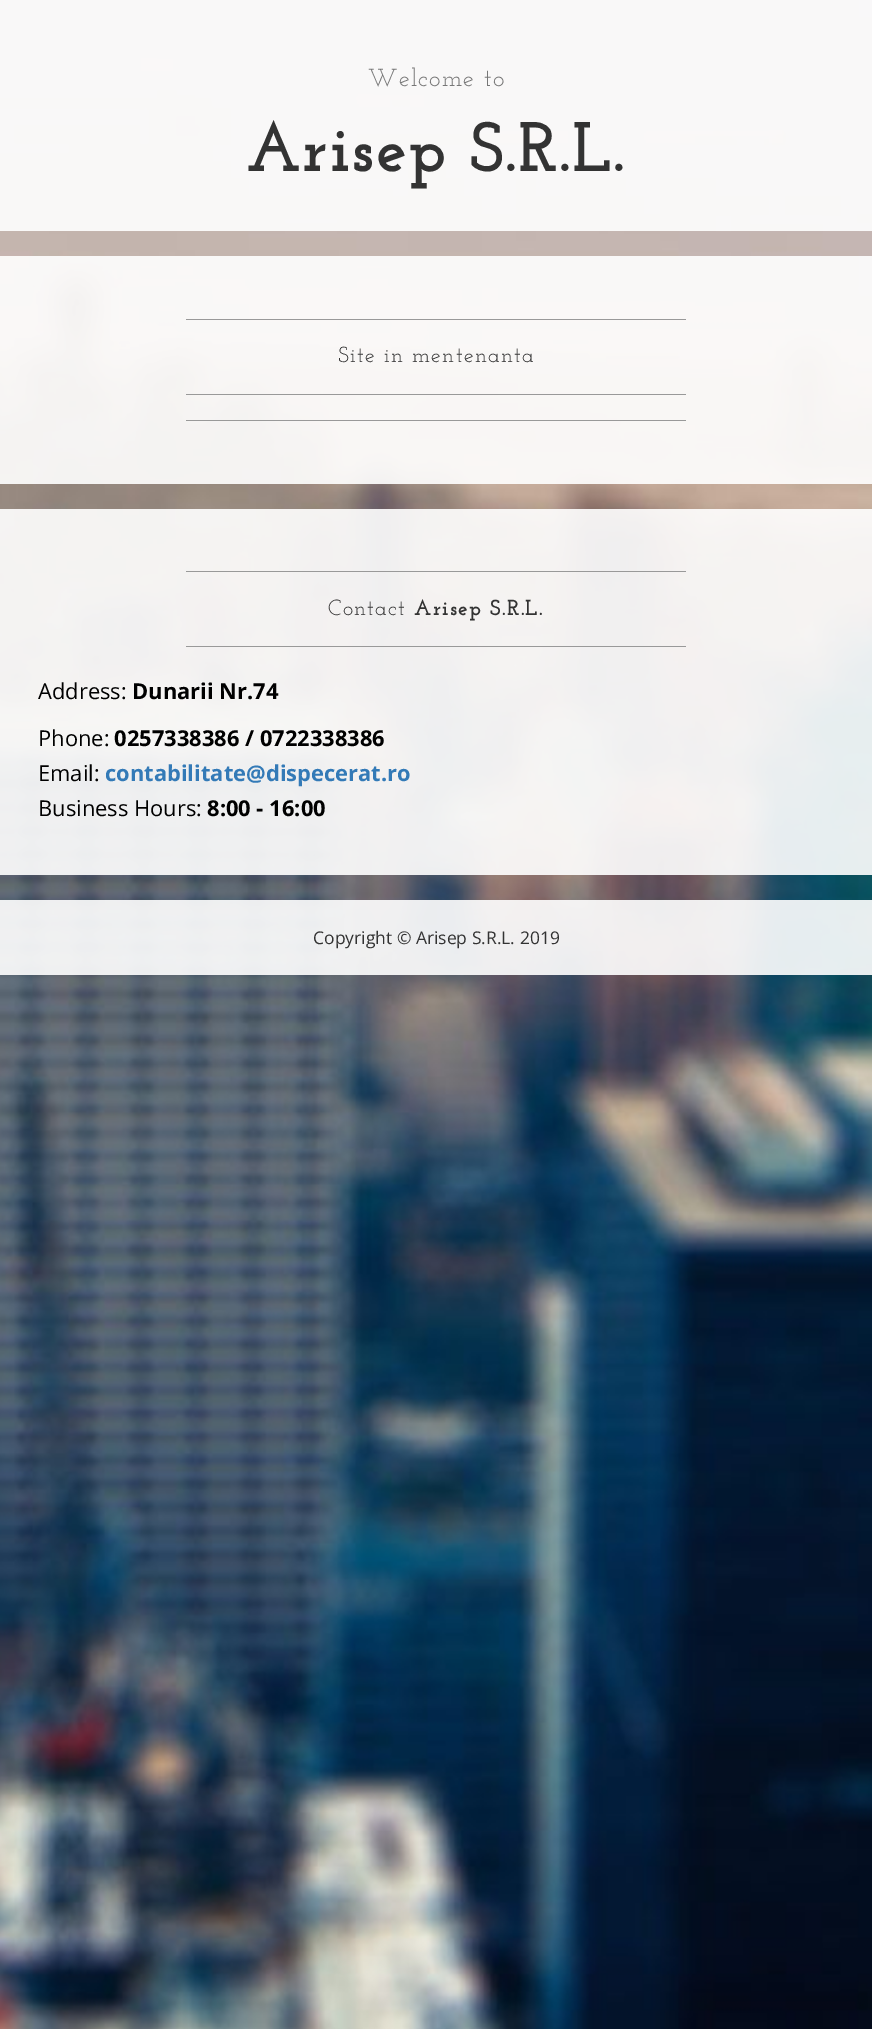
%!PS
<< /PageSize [872 2029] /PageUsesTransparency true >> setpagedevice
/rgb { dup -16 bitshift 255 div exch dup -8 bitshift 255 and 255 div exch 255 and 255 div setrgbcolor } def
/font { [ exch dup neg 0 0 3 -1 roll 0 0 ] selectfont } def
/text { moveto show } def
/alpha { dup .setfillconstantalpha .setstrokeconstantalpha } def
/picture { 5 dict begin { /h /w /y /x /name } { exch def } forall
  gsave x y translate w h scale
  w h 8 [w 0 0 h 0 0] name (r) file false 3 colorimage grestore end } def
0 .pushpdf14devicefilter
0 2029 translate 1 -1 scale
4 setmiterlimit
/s1 { /OpenSans-Regular 21.9 font 16#000000 rgb } def
/s2 { /OpenSans-Bold 21.9 font 16#000000 rgb } def
/s3 { /OpenSans-Bold 21.9 font 16#337AB7 rgb } def
/s4 { /OpenSans-Regular 17.5 font 16#333333 rgb } def
16#FFFFFF rgb
0 0 872 2029 rectfill
(pic1.raw) 0 0 872 2029 picture
0.9 alpha
0 0 872 231 rectfill
/JosefinSlab-Regular 24.5 font
1 alpha
16#777777 rgb
368 86 moveto 1.25 0 (Welcome to) ashow
/JosefinSlab-Bold 70 font
16#333333 rgb
246 171 moveto 1.25 0 (Arisep S.R.L.) ashow
0.9 alpha
16#FFFFFF rgb
0 256 872 228 rectfill
1 alpha
16#999999 rgb
186 319 500 1 rectfill
/JosefinSlab-Regular 21.9 font
16#333333 rgb
338 362 moveto 1.25 0 (Site in mentenanta) ashow
16#999999 rgb
186 394 500 1 rectfill
186 420 500 1 rectfill
0.9 alpha
16#FFFFFF rgb
0 509 872 366 rectfill
1 alpha
16#999999 rgb
186 571 500 1 rectfill
16#333333 rgb
328 615 moveto 1.25 0 (Contact) ashow
/JosefinSlab-Bold 21.9 font
414 615 moveto 1.25 0 (Arisep S.R.L.) ashow
16#999999 rgb
186 646 500 1 rectfill
s1
(Address:) 38 699 text
s2
(Dunarii Nr.74) 132 699 text
s1
(Phone:) 38 746 text
s2
(0257338386 / 0722338386) 114 746 text
s1
(Email:) 38 781 text
s3
(contabilitate@dispecerat.ro) 105 781 text
s1
(Business Hours:) 38 816 text
s2
(8:00 - 16:00) 207 816 text
0.9 alpha
16#FFFFFF rgb
0 900 872 75 rectfill
1 alpha
s4
(Copyright © Arisep S.R.L. 2019) 313 944 text
.poppdf14devicefilter showpage
